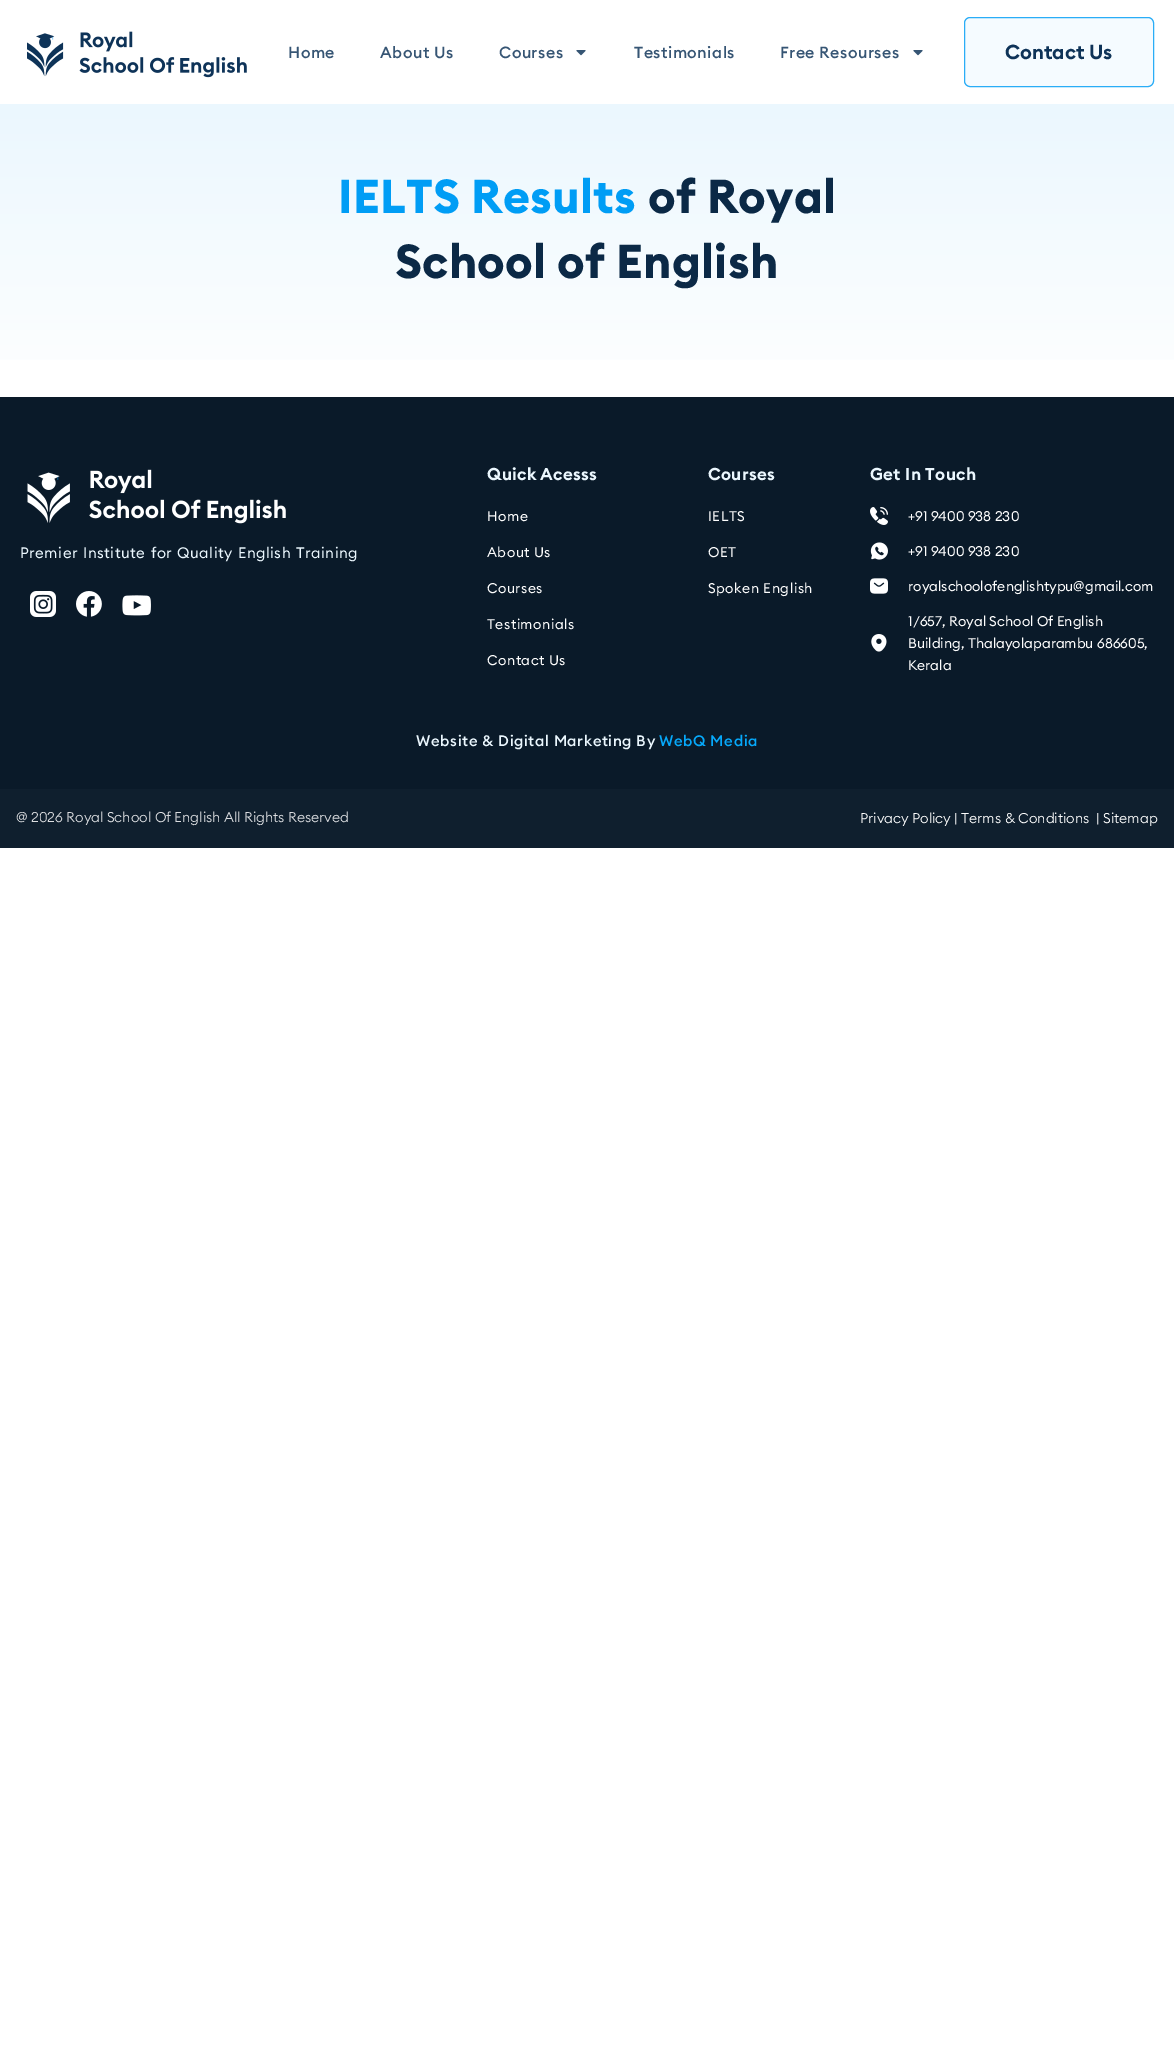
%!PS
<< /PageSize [1174 2061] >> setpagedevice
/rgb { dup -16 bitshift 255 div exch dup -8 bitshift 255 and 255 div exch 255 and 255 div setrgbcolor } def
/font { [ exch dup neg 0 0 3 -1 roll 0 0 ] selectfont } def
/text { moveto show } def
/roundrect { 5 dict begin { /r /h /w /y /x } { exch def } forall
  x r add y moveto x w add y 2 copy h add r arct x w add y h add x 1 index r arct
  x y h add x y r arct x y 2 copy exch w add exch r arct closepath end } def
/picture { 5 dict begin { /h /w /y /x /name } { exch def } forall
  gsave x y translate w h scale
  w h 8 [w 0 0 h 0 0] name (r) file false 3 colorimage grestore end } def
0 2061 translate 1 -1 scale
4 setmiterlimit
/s1 { /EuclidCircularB-SemiBold 20 font 16#0E3358 rgb } def
/s2 { /EuclidCircularB-Regular 13.9 font 16#FDFDFD rgb } def
/s3 { /EuclidCircularB-Light 14 font 16#DBDDE0 rgb } def
/s4 { /EuclidCircularB-Light 14 font 16#FDFDFD rgb } def
16#FFFFFF rgb
0 0 1174 2061 rectfill
(pic1.raw) 27 31 220 47 picture
/EuclidCircularB-Medium 16 font
16#365574 rgb
288 58 moveto 0.5 0 (Home) ashow
380 58 moveto 0.5 0 (About Us) ashow
499 58 moveto 0.5 0 (Courses) ashow
(pic2.raw) 576 50 10 6 picture
634 58 moveto 0.5 0 (Testimonials) ashow
780 58 moveto 0.5 0 (Free Resourses) ashow
(pic2.raw) 913 50 10 6 picture
16#F5FBFF rgb
964.5 17.5 189 69 5.5 roundrect gsave fill grestore
16#2AADF7 rgb
stroke
s1
(Contact Us) 1005 59 text
gsave 0 104 moveto 1174 104 lineto 1174 360 lineto 0 360 lineto closepath clip newpath
<< /ShadingType 2 /ColorSpace /DeviceRGB /Coords [587 104 587 397] /Extend [true true] /Function << /FunctionType 2 /Domain [0 1] /C0 [0.922 0.969 0.996] /C1 [1 1 1] /N 1 >> >> shfill grestore
/EuclidCircularB-Bold 47 font
16#009DF5 rgb
338 213 moveto 0.3 0 (IELTS Results) ashow
16#0B2946 rgb
648 213 moveto 0.3 0 (of Royal) ashow
395 278 moveto 0.3 0 (School of English) ashow
16#0A1A29 rgb
0 397 1174 392 rectfill
(pic3.raw) 27 469 259 55 picture
/EuclidCircularB-Regular 15 font
16#EBF7FE rgb
20 558 moveto 1 0 32 0.5 0 (Premier Institute for Quality English Training) awidthshow
(pic4.raw) 30 591 26 26 picture
(pic5.raw) 76 591 26 26 picture
(pic6.raw) 122 595 29 21 picture
/EuclidCircularB-SemiBold 17 font
487 480 moveto 0.3 0 (Quick Acesss) ashow
/EuclidCircularB-Regular 13.9 font
16#FDFDFD rgb
487 521 moveto 0.5 0 (Home) ashow
487 557 moveto 0.5 0 (About Us) ashow
487 593 moveto 0.5 0 (Courses) ashow
487 629 moveto 0.5 0 (Testimonials) ashow
487 665 moveto 0.5 0 (Contact Us) ashow
/EuclidCircularB-SemiBold 17 font
16#EBF7FE rgb
708 480 moveto 0.3 0 (Courses) ashow
/EuclidCircularB-Regular 13.9 font
16#FDFDFD rgb
708 521 moveto 0.5 0 (IELTS) ashow
708 557 moveto 0.5 0 (OET) ashow
708 593 moveto 0.5 0 (Spoken English) ashow
/EuclidCircularB-SemiBold 17 font
16#EBF7FE rgb
870 480 moveto 0.3 0 (Get In Touch) ashow
(pic7.raw) 870 507 18 18 picture
s2
(+91 9400 938 230) 908 521 text
(pic8.raw) 870 542 18 18 picture
(+91 9400 938 230) 908 556 text
(pic9.raw) 870 578 18 16 picture
(royalschoolofenglishtypu@gmail.com) 908 591 text
(pic10.raw) 871 634 16 18 picture
(1/657, Royal School Of English) 908 626 text
(Building, Thalayolaparambu 686605,) 908 648 text
(Kerala) 908 670 text
/EuclidCircularB-Medium 15 font
16#EBF7FE rgb
416 746 moveto 0.6 0 (Website & Digital Marketing By) ashow
16#06A9FB rgb
659 746 moveto 0.6 0 (WebQ Media) ashow
16#0F1F2E rgb
0 789 1174 59 rectfill
s3
(@ 2026 Royal School Of English All Rights Reserved) 16 822 text
s4
(Privacy Policy | Terms & Conditions) 860 823 text
(| Sitemap) 1096 823 text
showpage
